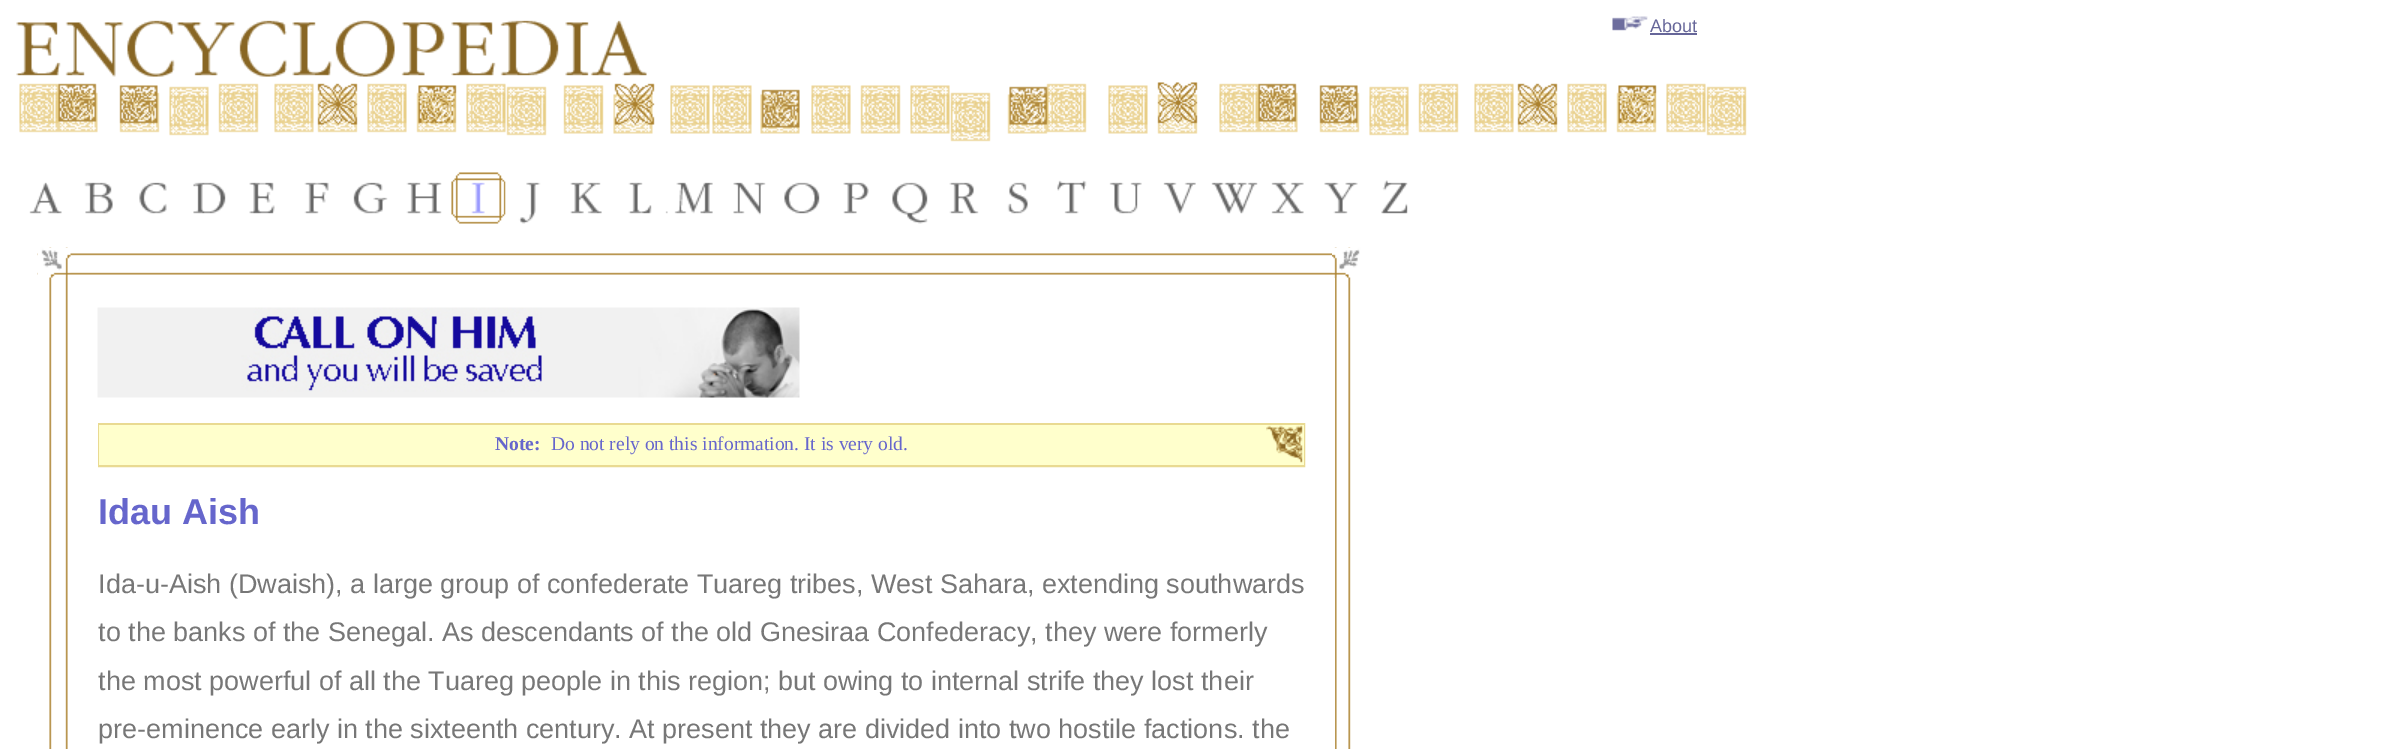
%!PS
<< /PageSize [2395 749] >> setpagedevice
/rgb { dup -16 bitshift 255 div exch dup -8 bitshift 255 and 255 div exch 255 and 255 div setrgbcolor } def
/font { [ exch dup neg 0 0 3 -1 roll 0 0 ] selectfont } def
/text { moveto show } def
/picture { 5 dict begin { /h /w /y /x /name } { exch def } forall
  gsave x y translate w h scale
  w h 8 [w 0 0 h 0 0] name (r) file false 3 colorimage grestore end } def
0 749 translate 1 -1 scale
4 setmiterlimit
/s1 { /LiberationSans-Regular 18 font 16#666699 rgb } def
/s2 { /LiberationSerif-Bold 19.5 font 16#6666CC rgb } def
/s3 { /LiberationSerif-Regular 19.5 font 16#6666CC rgb } def
/s4 { /LiberationSans-Bold 36 font 16#6666CC rgb } def
/s5 { /LiberationSans-Regular 27 font 16#777777 rgb } def
16#FFFFFF rgb
0 0 2395 749 rectfill
(pic1.raw) 16 20 631 57 picture
(pic2.raw) 1612 16 36 15 picture
s1
(About) 1650 32 text
1650 33 47 2 rectfill
(pic3.raw) 29 182 33 32 picture
(pic4.raw) 84 182 29 32 picture
(pic5.raw) 139 182 28 32 picture
(pic6.raw) 193 182 33 32 picture
(pic7.raw) 249 182 26 32 picture
(pic8.raw) 304 182 25 32 picture
(pic9.raw) 353 182 35 32 picture
(pic10.raw) 406 182 36 32 picture
(pic11.raw) 451 172 55 52 picture
(pic12.raw) 505 181 36 43 picture
(pic13.raw) 570 182 32 32 picture
(pic14.raw) 628 182 40 32 picture
(pic15.raw) 674 182 39 32 picture
(pic16.raw) 733 182 33 33 picture
(pic17.raw) 784 182 36 32 picture
(pic18.raw) 843 182 26 32 picture
(pic19.raw) 892 182 36 42 picture
(pic20.raw) 949 182 30 32 picture
(pic21.raw) 1007 182 21 32 picture
(pic22.raw) 1057 180 30 34 picture
(pic23.raw) 1109 182 33 32 picture
(pic24.raw) 1163 182 33 32 picture
(pic25.raw) 1211 182 47 32 picture
(pic26.raw) 1271 182 33 32 picture
(pic27.raw) 1324 182 34 32 picture
(pic28.raw) 1381 180 27 34 picture
(pic29.raw) 19 82 1728 60 picture
(pic30.raw) 49 247 19 502 picture
(pic31.raw) 1334 247 17 502 picture
(pic32.raw) 37 253 1295 22 picture
(pic33.raw) 37 247 34 31 picture
(pic34.raw) 1332 247 33 31 picture
16#FFFFFF rgb
1334 278 1 471 rectfill
(pic35.raw) 97 307 703 91 picture
16#E9DA92 rgb
2 setlinewidth
99 424 1205 42 rectstroke
16#FFFFCC rgb
99 425 1205 40 rectfill
(pic36.raw) 1266 425 37 38 picture
s2
(Note:) 495 450 text
s3
(Do not rely on this information. It is very old.) 551 450 text
s4
(Idau Aish) 98 524 text
s5
(Ida-u-Aish \(Dwaish\), a large group of confederate Tuareg tribes, West Sahara, extending southwards) 98 593 text
(to the banks of the Senegal. As descendants of the old Gnesiraa Confederacy, they were formerly) 98 641 text
(the most powerful of all the Tuareg people in this region; but owing to internal strife they lost their) 98 690 text
(pre-eminence early in the sixteenth century. At present they are divided into two hostile factions. the) 98 738 text
showpage
